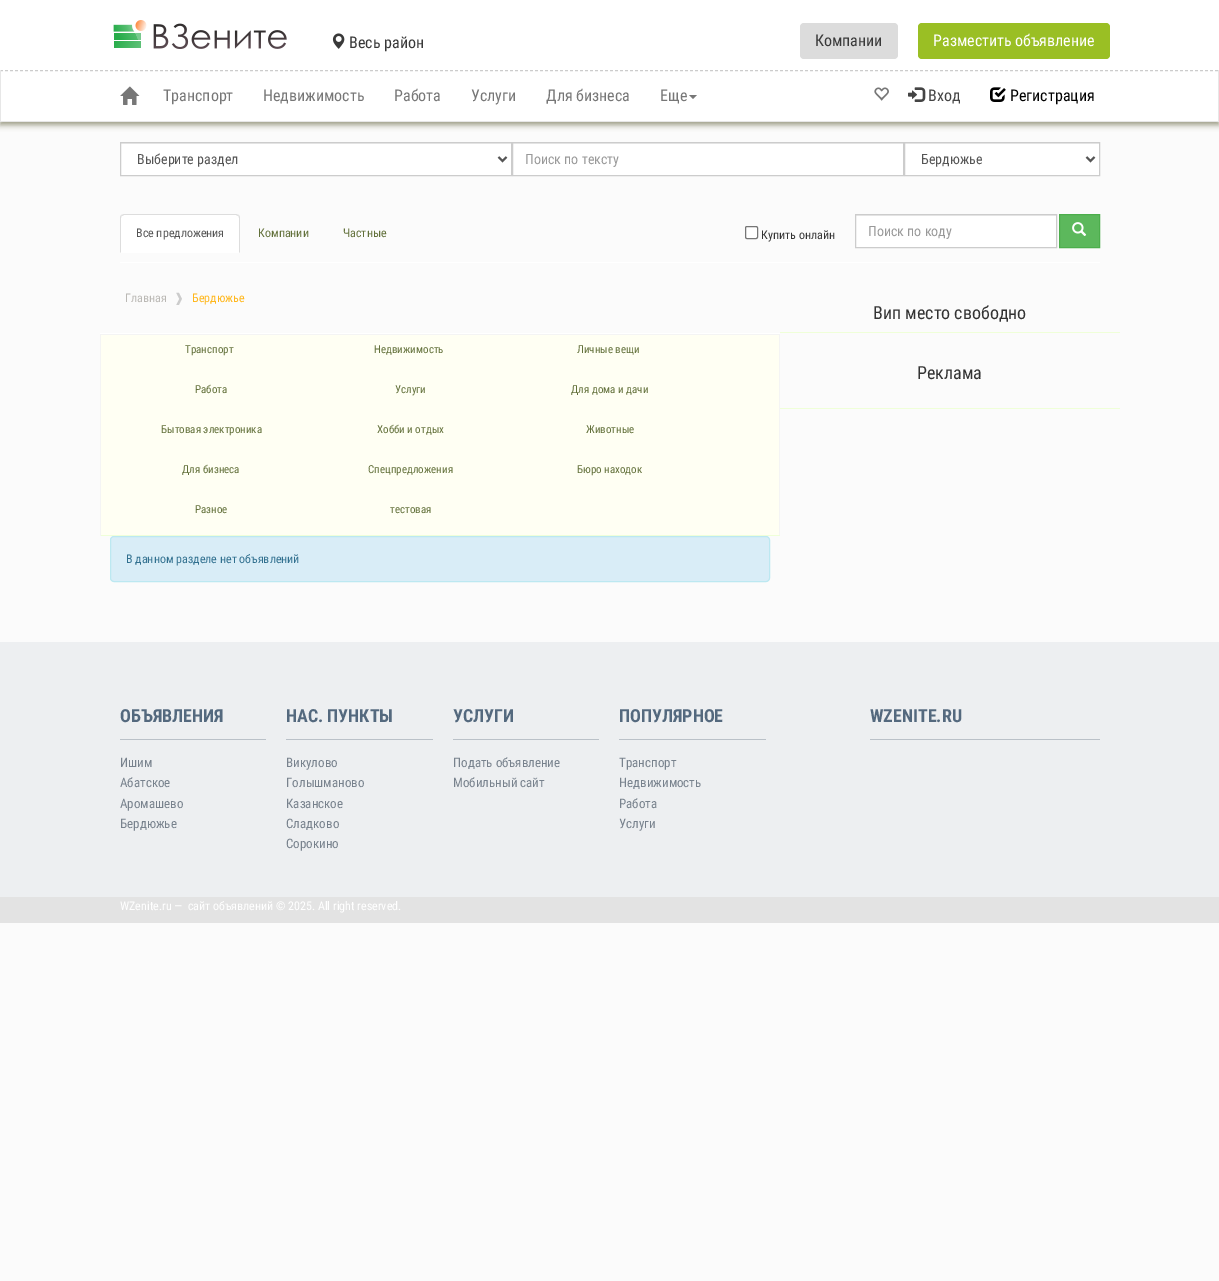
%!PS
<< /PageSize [1219 1281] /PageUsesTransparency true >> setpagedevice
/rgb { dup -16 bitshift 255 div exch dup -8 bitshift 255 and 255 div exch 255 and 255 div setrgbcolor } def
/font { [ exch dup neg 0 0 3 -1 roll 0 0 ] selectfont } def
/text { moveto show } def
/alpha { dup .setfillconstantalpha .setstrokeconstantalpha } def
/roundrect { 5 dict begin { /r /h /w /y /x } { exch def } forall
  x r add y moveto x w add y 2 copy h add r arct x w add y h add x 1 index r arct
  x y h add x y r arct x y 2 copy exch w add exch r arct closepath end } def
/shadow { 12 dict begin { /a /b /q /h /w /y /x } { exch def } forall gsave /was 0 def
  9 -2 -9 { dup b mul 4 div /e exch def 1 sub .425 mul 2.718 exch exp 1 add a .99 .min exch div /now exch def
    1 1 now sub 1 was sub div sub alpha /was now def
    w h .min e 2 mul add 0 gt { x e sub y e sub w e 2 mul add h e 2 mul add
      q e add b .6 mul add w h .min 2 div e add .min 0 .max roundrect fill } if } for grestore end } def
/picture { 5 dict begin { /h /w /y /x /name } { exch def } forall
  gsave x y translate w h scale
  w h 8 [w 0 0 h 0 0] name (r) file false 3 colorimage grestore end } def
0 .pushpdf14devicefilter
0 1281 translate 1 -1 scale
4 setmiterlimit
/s1 { /RobotoCondensed-Regular 16 font 16#393939 rgb } def
/s2 { /RobotoCondensed-Regular 16 font 16#FFFFFF rgb } def
/s3 { /RobotoCondensed-Regular 16 font 16#777777 rgb } def
/s4 { /RobotoCondensed-Regular 16 font 16#444444 rgb } def
/s5 { /RobotoCondensed-Regular 16 font 16#000000 rgb } def
/s6 { /RobotoCondensed-Regular 14 font 16#555555 rgb } def
/s7 { /RobotoCondensed-Regular 14 font 16#999999 rgb } def
/s8 { /RobotoCondensed-Regular 12 font 16#555555 rgb } def
/s9 { /RobotoCondensed-Regular 12 font 16#62703A rgb } def
/s10 { /RobotoCondensed-Regular 12 font 16#333333 rgb } def
/s11 { /RobotoCondensed-Regular 12 font 16#BAB8B4 rgb } def
/s12 { /DejaVuSans-Regular 12 font 16#CCCCCC rgb } def
/s13 { /RobotoCondensed-Regular 12 font 16#FFB71C rgb } def
/s14 { /RobotoCondensed-Regular 11 font 16#62703A rgb } def
/s15 { /RobotoCondensed-Regular 12 font 16#31708F rgb } def
/s16 { /RobotoCondensed-Regular 18 font 16#333333 rgb } def
/s17 { /RobotoCondensed-Bold 18 font 16#54697E rgb } def
/s18 { /RobotoCondensed-Regular 13 font 16#78828D rgb } def
/s19 { /RobotoCondensed-Regular 12 font 16#FFFFFF rgb } def
16#FBFBFB rgb
0 0 1219 1281 rectfill
16#323200 rgb
0 73 1219 52 0 3 0.48 shadow
16#FFFFFF rgb
0 0 1219 70 rectfill
(pic1.raw) 113 20 174 29 picture
(pic2.raw) 332 33 13 16 picture
s1
(Весь район) 349 48 text
16#DCDCDC rgb
800 23 98 36 4 roundrect fill
s1
(Компании) 815 46 text
16#9ABF24 rgb
918 23 192 36 4 roundrect fill
s2
(Разместить объявление) 933 46 text
1 70 1217 51 rectfill
16#CCCCCC rgb
[3 2] 0 setdash
0 70.5 moveto 1219 70.5 lineto stroke
16#E7E7E7 rgb
1218 70 1 52 rectfill
0 121 1219 1 rectfill
0 70 1 52 rectfill
(pic3.raw) 120 86 20 19 picture
s3
(Транспорт) 163 101 text
(Недвижимость) 263 101 text
(Работа) 394 101 text
(Услуги) 471 101 text
(Для бизнеса) 546 101 text
(Еще) 660 101 text
689 95 moveto 697 95 lineto 693 99 lineto closepath fill
(pic4.raw) 874 87 15 14 picture
(pic5.raw) 908 87 18 15 picture
s4
(Вход) 928 101 text
(pic6.raw) 990 87 16 15 picture
s5
(Регистрация) 1010 101 text
16#FFFFFF rgb
121 144 390 31 rectfill
16#ECECEC rgb
121 143 390 1 rectfill
16#CCCCCC rgb
[] 0 setdash
120.5 142.5 391 33 rectstroke
16#555555 rgb
2 setlinewidth
498.5 157 moveto 502.5 161 lineto 506.5 157 lineto stroke
s6
(Выберите раздел) 137 164 text
16#FFFFFF rgb
513 144 390 31 rectfill
16#ECECEC rgb
513 143 390 1 rectfill
16#CCCCCC rgb
1 setlinewidth
512.5 142.5 391 33 rectstroke
s7
(Поиск по тексту) 525 164 text
16#FFFFFF rgb
905 144 194 31 rectfill
16#ECECEC rgb
905 143 194 1 rectfill
16#CCCCCC rgb
904.5 142.5 195 33 rectstroke
16#555555 rgb
2 setlinewidth
1086.5 157 moveto 1090.5 161 lineto 1094.5 157 lineto stroke
(Бердюжье) 921 164 text
16#FFFFFF rgb
120 262 980 1 rectfill
124 214 moveto 236 214 lineto 238 214 240 216 240 218 curveto 240 253 lineto 120 253 lineto 120 218 lineto 120 216 122 214 124 214 curveto closepath fill
16#DDDDDD rgb
124 214 moveto 121 215 lineto 122 216 lineto 124 215 lineto 236 215 lineto 238 216 lineto 239 215 lineto 236 214 lineto closepath fill
240 253 moveto 240 218 lineto 240 217 239.5 216 239 215 curveto 238 216 lineto 239 216 239 217 239 218 curveto 239 252 lineto closepath fill
120 253 moveto 121 252 lineto 121 218 lineto 121 217 121 216 122 216 curveto 121 215 lineto 120.5 216 120 217 120 218 curveto closepath fill
s8
(Все предложения) 136 237 text
s9
(Компании) 258 237 text
(Частные) 343 237 text
16#FFFFFF rgb
745.5 226.5 12 12 1.5 roundrect gsave fill grestore
16#767676 rgb
1 setlinewidth
stroke
s10
(Купить онлайн) 761 239 text
16#FFFFFF rgb
856 216 200 31 rectfill
16#ECECEC rgb
856 215 200 1 rectfill
16#CCCCCC rgb
855.5 214.5 201 33 rectstroke
s7
(Поиск по коду) 868 236 text
16#5CB85C rgb
1059.5 214.5 moveto 1099.5 214.5 lineto 1099.5 247.5 lineto 1059.5 247.5 lineto closepath gsave fill grestore
16#4CAE4C rgb
stroke
(pic7.raw) 1072 222 15 14 picture
16#FFFFFF rgb
100 333 680 1 rectfill
s11
(Главная) 125 302 text
s12
(❱) 174 302 text
s13
(Бердюжье) 192 302 text
16#FFFFF3 rgb
101 335 678 200 rectfill
16#F4F4F4 rgb
100 334 680 1 rectfill
779 334 1 202 rectfill
16#EFFFD8 rgb
100 535 680 1 rectfill
16#F4F4F4 rgb
100 334 1 202 rectfill
s14
(Транспорт) 185 353 text
(Недвижимость) 374 353 text
(Личные вещи) 577 353 text
(Работа) 195 393 text
(Услуги) 395 393 text
(Для дома и дачи) 571 393 text
(Бытовая электроника) 161 433 text
(Хобби и отдых) 377 433 text
(Животные) 586 433 text
(Для бизнеса) 182 473 text
(Спецпредложения) 368 473 text
(Бюро находок) 577 473 text
(Разное) 195 513 text
(тестовая) 390 513 text
16#D9EDF7 rgb
110.5 536.5 659 45 3.5 roundrect gsave fill grestore
16#BCE8F1 rgb
stroke
s15
(В данном разделе нет объявлений) 126 563 text
16#EFFFD8 rgb
780 332 340 1 rectfill
s16
(Вип место свободно) 873 319 text
16#EFFFD8 rgb
780 408 340 1 rectfill
s16
(Реклама) 917 379 text
16#EDEFF1 rgb
0 642 1219 255 rectfill
16#BAC1C8 rgb
120 739 146 1 rectfill
s17
(ОБЪЯВЛЕНИЯ) 120 722 text
s18
(Ишим) 120 767 text
(Абатское) 120 787 text
(Аромашево) 120 808 text
(Бердюжье) 120 828 text
16#BAC1C8 rgb
286 739 147 1 rectfill
s17
(НАС. ПУНКТЫ) 286 722 text
s18
(Викулово) 286 767 text
(Голышманово) 286 787 text
(Казанское) 286 808 text
(Сладково) 286 828 text
(Сорокино) 286 848 text
16#BAC1C8 rgb
453 739 146 1 rectfill
s17
(УСЛУГИ) 453 722 text
s18
(Подать объявление) 453 767 text
(Мобильный сайт) 453 787 text
16#BAC1C8 rgb
619 739 147 1 rectfill
s17
(ПОПУЛЯРНОЕ) 619 722 text
s18
(Транспорт) 619 767 text
(Недвижимость) 619 787 text
(Работа) 619 808 text
(Услуги) 619 828 text
16#BAC1C8 rgb
870 739 230 1 rectfill
s17
(WZENITE.RU) 870 722 text
16#E3E3E3 rgb
0 897 1219 26 rectfill
s19
(WZenite.ru —  сайт объявлений © 2025. All right reserved.) 120 910 text
.poppdf14devicefilter showpage
